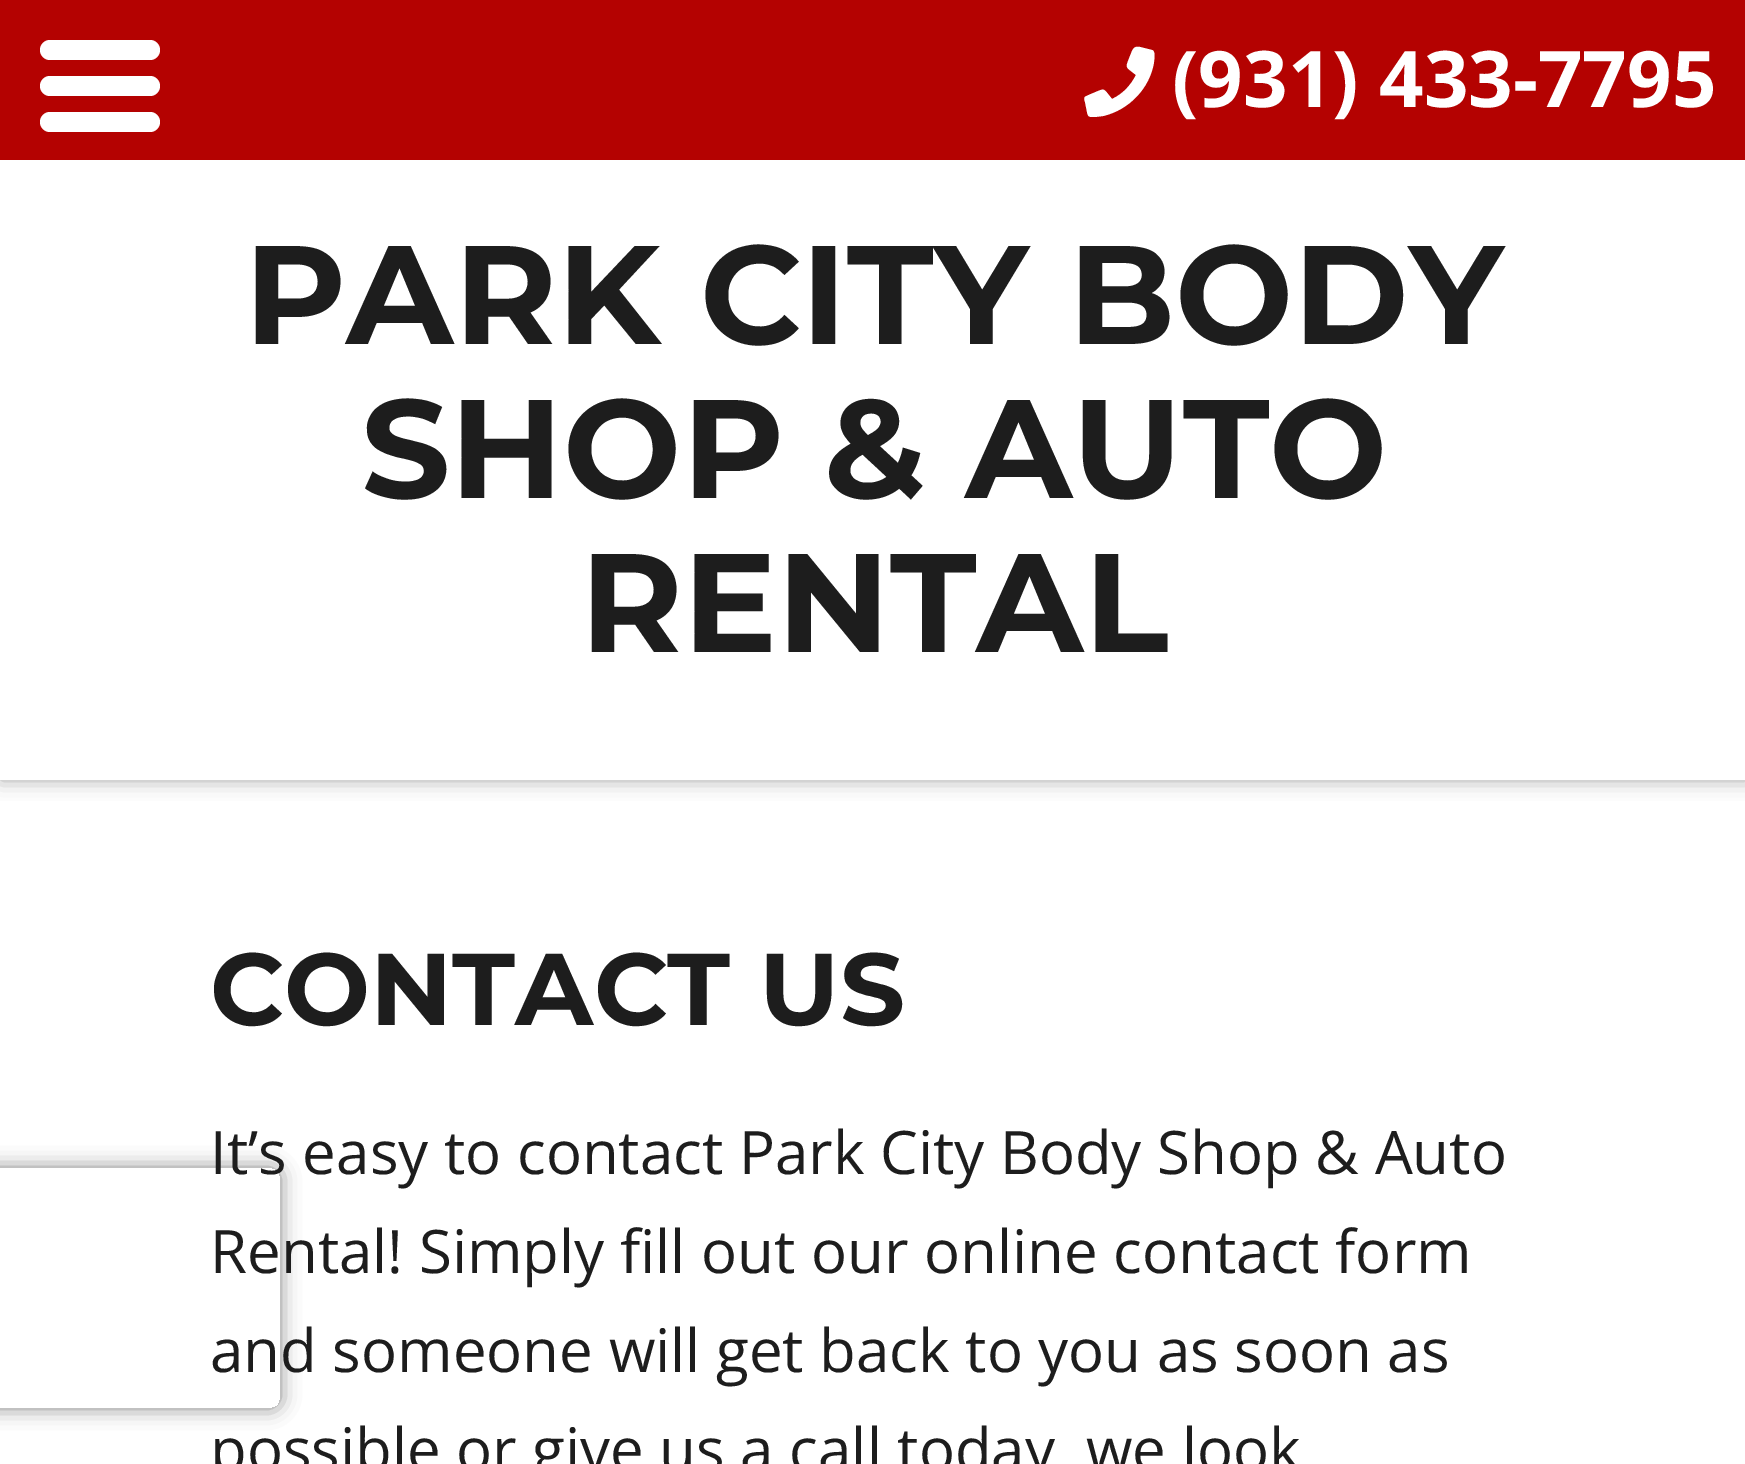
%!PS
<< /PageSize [1745 1464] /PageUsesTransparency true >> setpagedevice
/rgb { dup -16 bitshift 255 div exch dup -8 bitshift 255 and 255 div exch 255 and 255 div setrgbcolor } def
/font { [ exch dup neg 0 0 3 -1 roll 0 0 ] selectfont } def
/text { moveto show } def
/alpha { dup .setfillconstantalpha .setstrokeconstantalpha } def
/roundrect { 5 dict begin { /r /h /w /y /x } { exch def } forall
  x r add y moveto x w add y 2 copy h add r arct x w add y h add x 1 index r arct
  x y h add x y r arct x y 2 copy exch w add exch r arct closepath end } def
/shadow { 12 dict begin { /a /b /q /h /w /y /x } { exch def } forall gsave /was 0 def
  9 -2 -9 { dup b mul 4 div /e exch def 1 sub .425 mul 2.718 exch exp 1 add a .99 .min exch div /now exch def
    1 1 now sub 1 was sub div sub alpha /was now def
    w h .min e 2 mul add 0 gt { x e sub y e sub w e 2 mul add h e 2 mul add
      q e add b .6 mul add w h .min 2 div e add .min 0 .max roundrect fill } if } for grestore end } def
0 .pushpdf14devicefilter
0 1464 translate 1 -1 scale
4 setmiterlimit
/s1 { /OpenSans-Bold 78 font 16#FFFFFF rgb } def
/s2 { /Montserrat-Bold 140 font 16#1D1D1D rgb } def
/s3 { /Montserrat-Bold 102 font 16#1D1D1D rgb } def
/s4 { /OpenSans-Regular 60 font 16#1D1D1D rgb } def
16#FFFFFF rgb
0 0 1745 1464 rectfill
gsave
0 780 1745 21 rectclip
16#A5A5A5 rgb
0 160 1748 620 0 10 1 shadow
grestore
16#B40201 rgb
0 0 1745 160 rectfill
16#FFFFFF rgb
40 76 120 20 10 roundrect fill
40 40 120 20 10 roundrect fill
40 112 120 20 10 roundrect fill
1152 50 moveto 1140 47 lineto 1133 46 1133 49 1130 56 curveto 1125 69 1125 66 1136 75 curveto 1131 85 1123 94 1112 99 curveto 1102 87 1106 88 1091 94 curveto 1085 97 1083 96 1085 102 curveto 1087 112 lineto 1088 117 1089 117 1095 117 curveto 1103 116 lineto 1129 110 1150 88 1154 62 curveto 1154 60 1156 51 1152 50 curveto closepath fill
s1
(\(931\) 433-7795) 1172 107 text
s2
(PARK CITY BODY) 244 344 text
(SHOP & AUTO) 361 498 text
(RENTAL) 580 652 text
s3
(CONTACT US) 210 1025 text
gsave
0 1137 moveto 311 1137 lineto 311 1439 lineto 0 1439 lineto closepath -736 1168 moveto 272 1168 lineto 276.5 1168 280 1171.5 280 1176 curveto 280 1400 lineto 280 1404.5 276.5 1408 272 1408 curveto -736 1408 lineto -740.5 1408 -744 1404.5 -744 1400 curveto -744 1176 lineto -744 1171.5 -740.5 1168 -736 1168 curveto closepath eoclip newpath
16#808080 rgb
-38 1168 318 240 8 10 1 shadow
grestore
s4
(It’s easy to contact Park City Body Shop & Auto) 210 1174 text
(Rental! Simply fill out our online contact form) 210 1273 text
(and someone will get back to you as soon as) 210 1372 text
(possible or give us a call today, we look) 210 1471 text
.poppdf14devicefilter showpage
